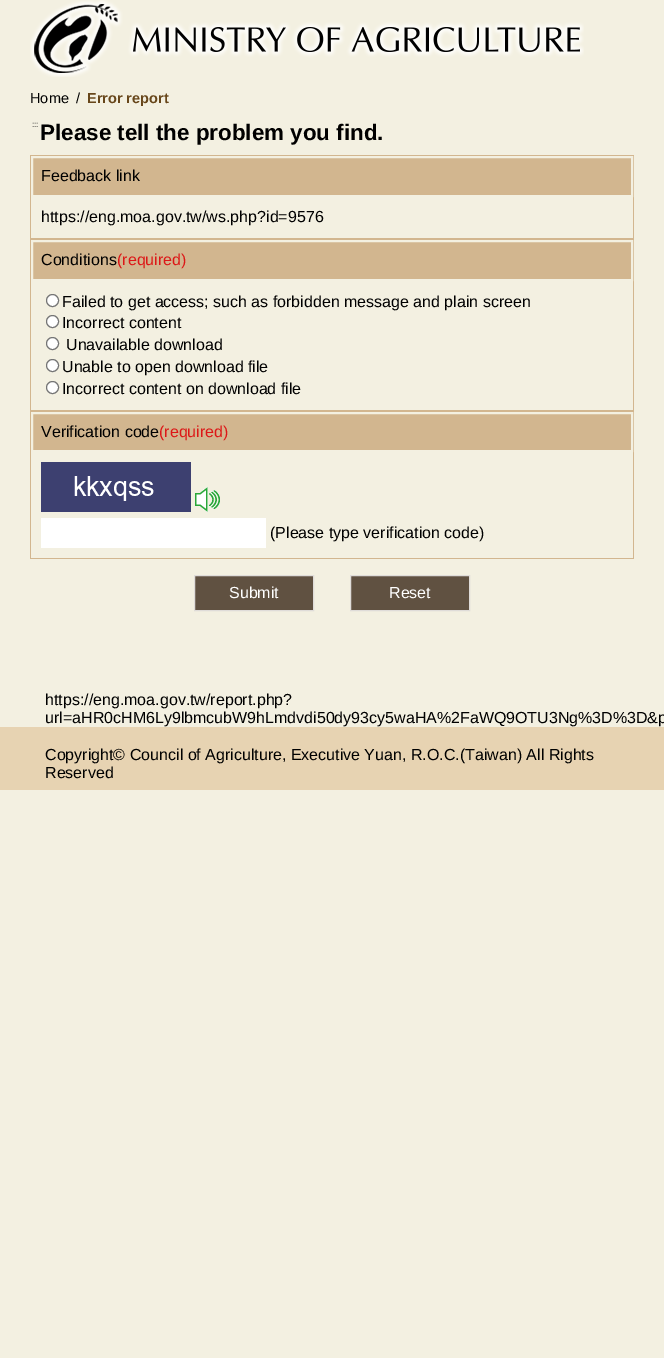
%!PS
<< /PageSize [664 1358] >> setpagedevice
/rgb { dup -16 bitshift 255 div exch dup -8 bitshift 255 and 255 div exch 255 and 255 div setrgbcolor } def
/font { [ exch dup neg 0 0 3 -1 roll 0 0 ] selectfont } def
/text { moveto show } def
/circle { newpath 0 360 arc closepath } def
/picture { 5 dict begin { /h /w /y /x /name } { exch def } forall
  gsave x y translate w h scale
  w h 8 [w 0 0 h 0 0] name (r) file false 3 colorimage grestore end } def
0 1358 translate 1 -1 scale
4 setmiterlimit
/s1 { /LiberationSans-Regular 14.5 font 16#000000 rgb } def
/s2 { /LiberationSans-Bold 14.5 font 16#67461A rgb } def
/s3 { /LiberationSans-Regular 8 font 16#000000 rgb } def
/s4 { /LiberationSans-Bold 22.4 font 16#000000 rgb } def
/s5 { /LiberationSans-Regular 16 font 16#000000 rgb } def
/s6 { /LiberationSans-Regular 16 font 16#DD1717 rgb } def
/s7 { /LiberationSans-Regular 16 font 16#FFFFFF rgb } def
16#F3F0E1 rgb
0 0 664 1358 rectfill
(pic1.raw) 30 0 554 77 picture
s1
(Home) 30 103 text
(/) 76 103 text
s2
(Error report) 87 103 text
s3
(:::) 32 127 text
s4
(Please tell the problem you find.) 40 140 text
16#D2B68F rgb
30 155 604 404 rectfill
16#F3F0E1 rgb
2 setlinewidth
32 157 600 39 rectstroke
s5
(Feedback link) 41 181 text
16#F3F0E1 rgb
31 197 602 41 rectfill
s5
(https://eng.moa.gov.tw/ws.php?id=9576) 41 222 text
16#F3F0E1 rgb
32 241 600 39 rectstroke
s5
(Conditions) 41 265 text
s6
(\(required\)) 117 265 text
16#F3F0E1 rgb
31 281 602 129 rectfill
16#FFFFFF rgb
52.5 300.5 6 circle gsave fill grestore
16#767676 rgb
1 setlinewidth
stroke
s5
(Failed to get access; such as forbidden message and plain screen) 62 307 text
16#FFFFFF rgb
52.5 321.5 6 circle gsave fill grestore
16#767676 rgb
stroke
s5
(Incorrect content) 62 328 text
16#FFFFFF rgb
52.5 343.5 6 circle gsave fill grestore
16#767676 rgb
stroke
s5
(Unavailable download) 66 350 text
16#FFFFFF rgb
52.5 365.5 6 circle gsave fill grestore
16#767676 rgb
stroke
s5
(Unable to open download file) 62 372 text
16#FFFFFF rgb
52.5 387.5 6 circle gsave fill grestore
16#767676 rgb
stroke
s5
(Incorrect content on download file) 62 394 text
16#F3F0E1 rgb
2 setlinewidth
32 413 600 38 rectstroke
s5
(Verification code) 41 437 text
s6
(\(required\)) 159 437 text
16#F3F0E1 rgb
31 452 602 106 rectfill
(pic2.raw) 41 462 150 50 picture
(pic3.raw) 195 487 25 25 picture
16#FFFFFF rgb
41 518 225 30 rectfill
s5
(\(Please type verification code\)) 270 538 text
16#605141 rgb
194.5 575.5 moveto 313.5 575.5 lineto 313.5 610.5 lineto 194.5 610.5 lineto closepath gsave fill grestore
16#DFDCD9 rgb
1 setlinewidth
stroke
s7
(Submit) 229 598 text
16#605141 rgb
350.5 575.5 moveto 469.5 575.5 lineto 469.5 610.5 lineto 350.5 610.5 lineto closepath gsave fill grestore
16#DFDCD9 rgb
stroke
s7
(Reset) 389 598 text
s5
(https://eng.moa.gov.tw/report.php?) 45 705 text
(url=aHR0cHM6Ly9lbmcubW9hLmdvdi50dy93cy5waHA%2FaWQ9OTU3Ng%3D%3D&p) 45 723 text
16#E7D3B2 rgb
0 727 664 63 rectfill
s5
(Copyright© Council of Agriculture, Executive Yuan, R.O.C.\(Taiwan\) All Rights) 45 760 text
(Reserved) 45 778 text
showpage
